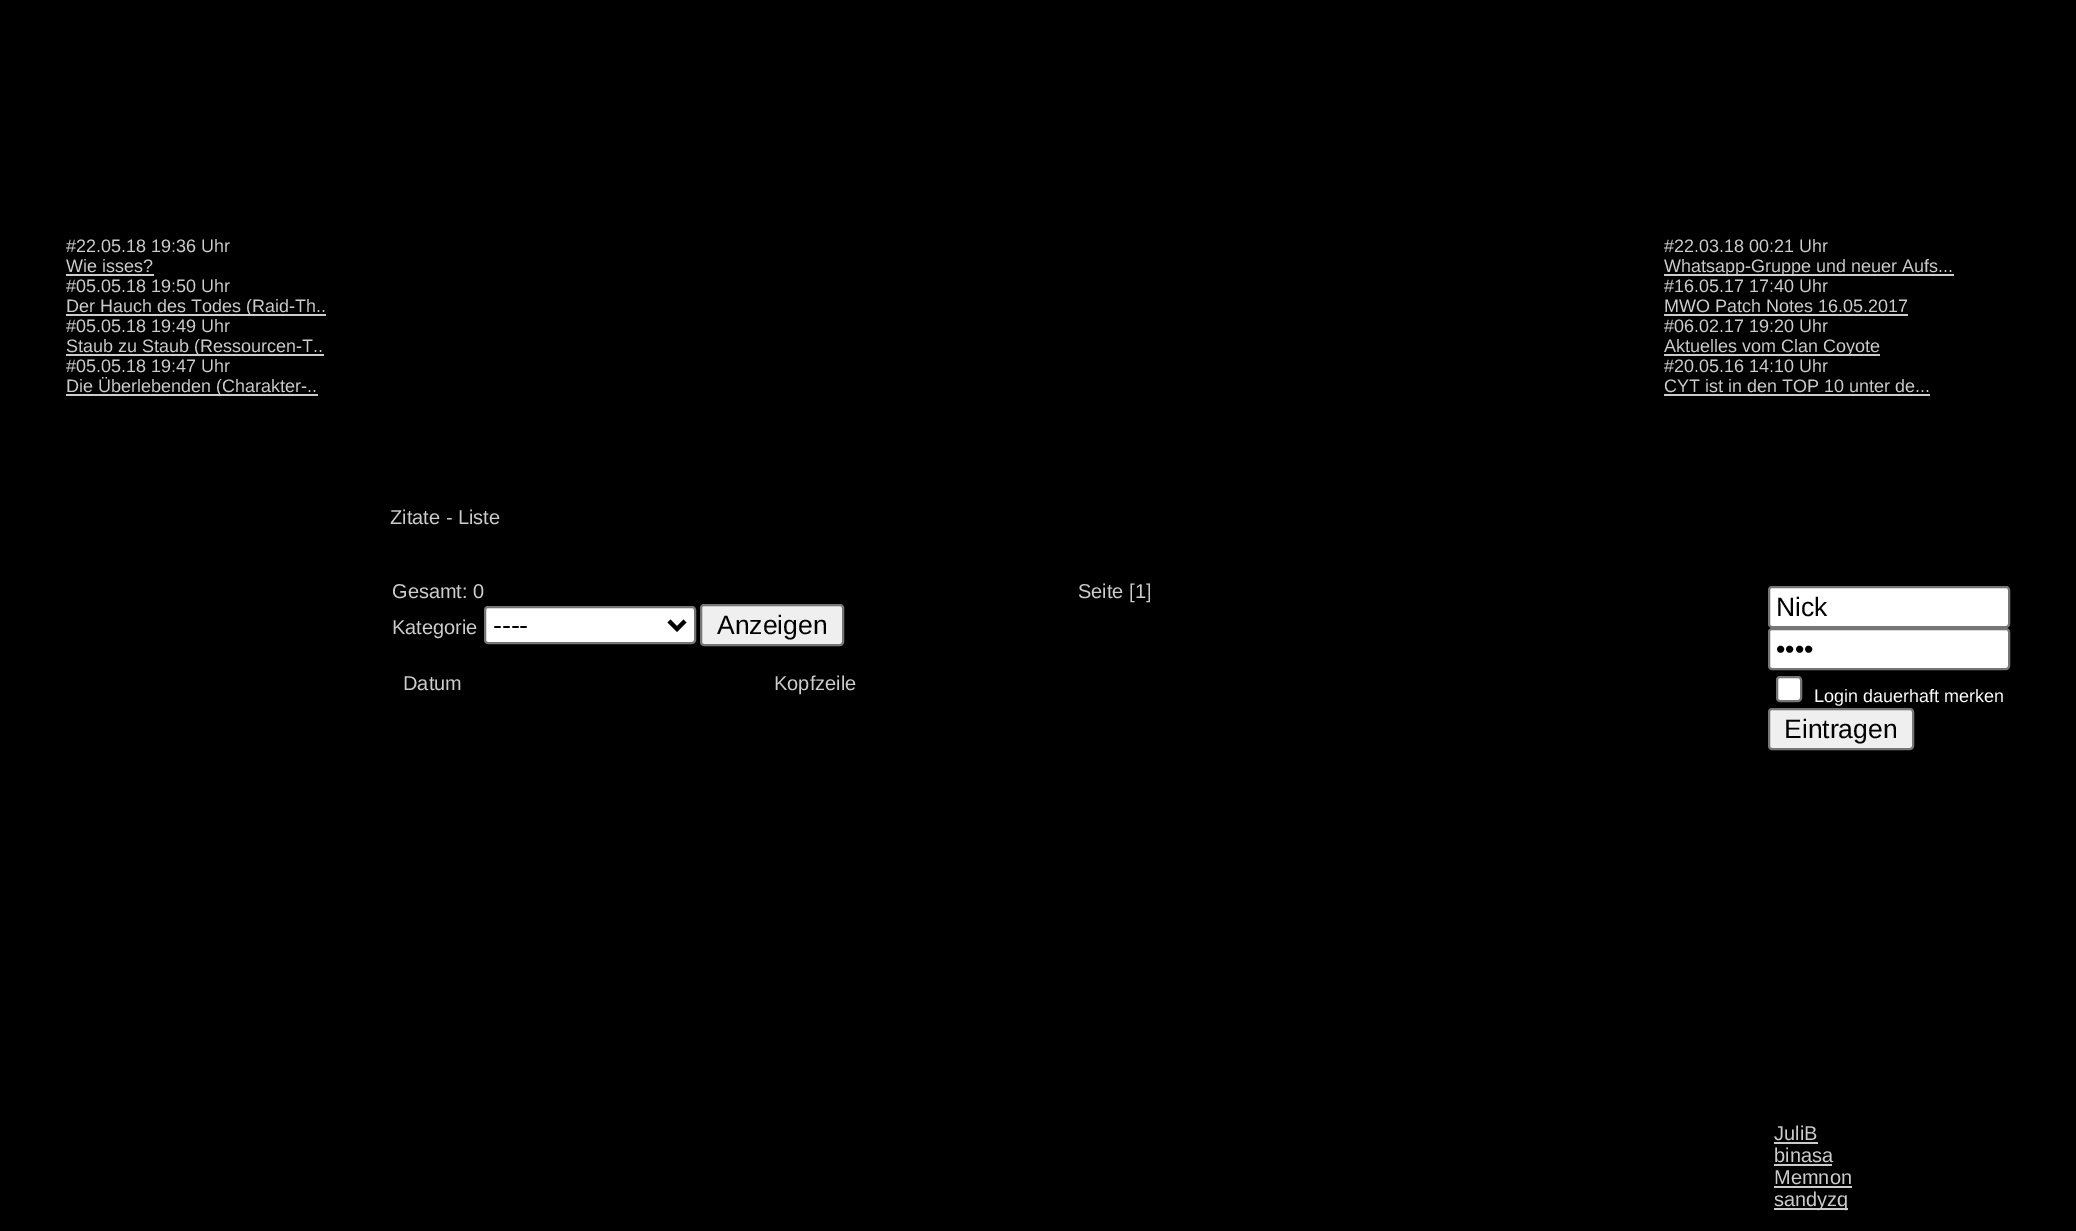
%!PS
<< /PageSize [2076 1231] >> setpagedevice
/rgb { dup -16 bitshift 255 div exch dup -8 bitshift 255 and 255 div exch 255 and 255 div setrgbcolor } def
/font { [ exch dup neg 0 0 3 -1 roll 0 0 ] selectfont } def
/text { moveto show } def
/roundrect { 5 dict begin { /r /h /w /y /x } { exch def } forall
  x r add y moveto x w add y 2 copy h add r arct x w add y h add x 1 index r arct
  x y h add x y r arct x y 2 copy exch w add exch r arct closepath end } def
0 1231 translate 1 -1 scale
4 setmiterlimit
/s1 { /LiberationSans-Regular 18 font 16#CCCCCC rgb } def
/s2 { /LiberationSans-Regular 20 font 16#CCCCCC rgb } def
/s3 { /LiberationSans-Regular 26.5 font 16#000000 rgb } def
/s4 { /LiberationSans-Regular 18 font 16#FFFFFF rgb } def
16#000000 rgb
0 0 2076 1231 rectfill
s1
(#22.05.18 19:36 Uhr) 66 252 text
(Wie isses?) 66 272 text
66 274 88 2 rectfill
(#05.05.18 19:50 Uhr) 66 292 text
66 314 260 2 rectfill
(Der Hauch des Todes \(Raid-Th..) 66 312 text
(#05.05.18 19:49 Uhr) 66 332 text
66 354 258 2 rectfill
(Staub zu Staub \(Ressourcen-T..) 66 352 text
(#05.05.18 19:47 Uhr) 66 372 text
66 394 252 2 rectfill
(Die Überlebenden \(Charakter-..) 66 392 text
(#22.03.18 00:21 Uhr) 1664 252 text
1664 274 290 2 rectfill
(Whatsapp-Gruppe und neuer Aufs...) 1664 272 text
(#16.05.17 17:40 Uhr) 1664 292 text
(MWO Patch Notes 16.05.2017) 1664 312 text
1664 314 244 2 rectfill
(#06.02.17 19:20 Uhr) 1664 332 text
1664 354 216 2 rectfill
(Aktuelles vom Clan Coyote) 1664 352 text
(#20.05.16 14:10 Uhr) 1664 372 text
(CYT ist in den TOP 10 unter de...) 1664 392 text
1664 394 266 2 rectfill
s2
(Zitate - Liste) 390 524 text
(Gesamt: 0) 392 598 text
(Seite [1]) 1078 598 text
(Kategorie) 392 634 text
16#FFFFFF rgb
485 607 210 36 3 roundrect gsave fill grestore
16#767676 rgb
2 setlinewidth
stroke
16#000000 rgb
4 setlinewidth
669 621 moveto 677 629 lineto 685 621 lineto stroke
s3
(----) 493 634 text
16#EFEFEF rgb
701 605 142 40 3 roundrect gsave fill grestore
16#767676 rgb
2 setlinewidth
stroke
s3
(Anzeigen) 717 634 text
s2
(Datum) 403 690 text
(Kopfzeile) 774 690 text
16#FFFFFF rgb
1769 587 240 40 3 roundrect gsave fill grestore
16#767676 rgb
stroke
s3
(Nick) 1776 616 text
16#FFFFFF rgb
1769 629 240 40 3 roundrect gsave fill grestore
16#767676 rgb
stroke
s3
(••••) 1776 658 text
16#FFFFFF rgb
1777 677 24 24 3 roundrect gsave fill grestore
16#767676 rgb
stroke
s4
(Login dauerhaft merken) 1814 702 text
16#EFEFEF rgb
1769 709 144 40 3 roundrect gsave fill grestore
16#767676 rgb
stroke
s3
(Eintragen) 1784 738 text
s2
(JuliB) 1774 1140 text
1774 1142 44 2 rectfill
(binasa) 1774 1162 text
1774 1164 58 2 rectfill
(Memnon) 1774 1184 text
1774 1186 78 2 rectfill
1774 1208 74 2 rectfill
(sandyzq) 1774 1206 text
showpage
